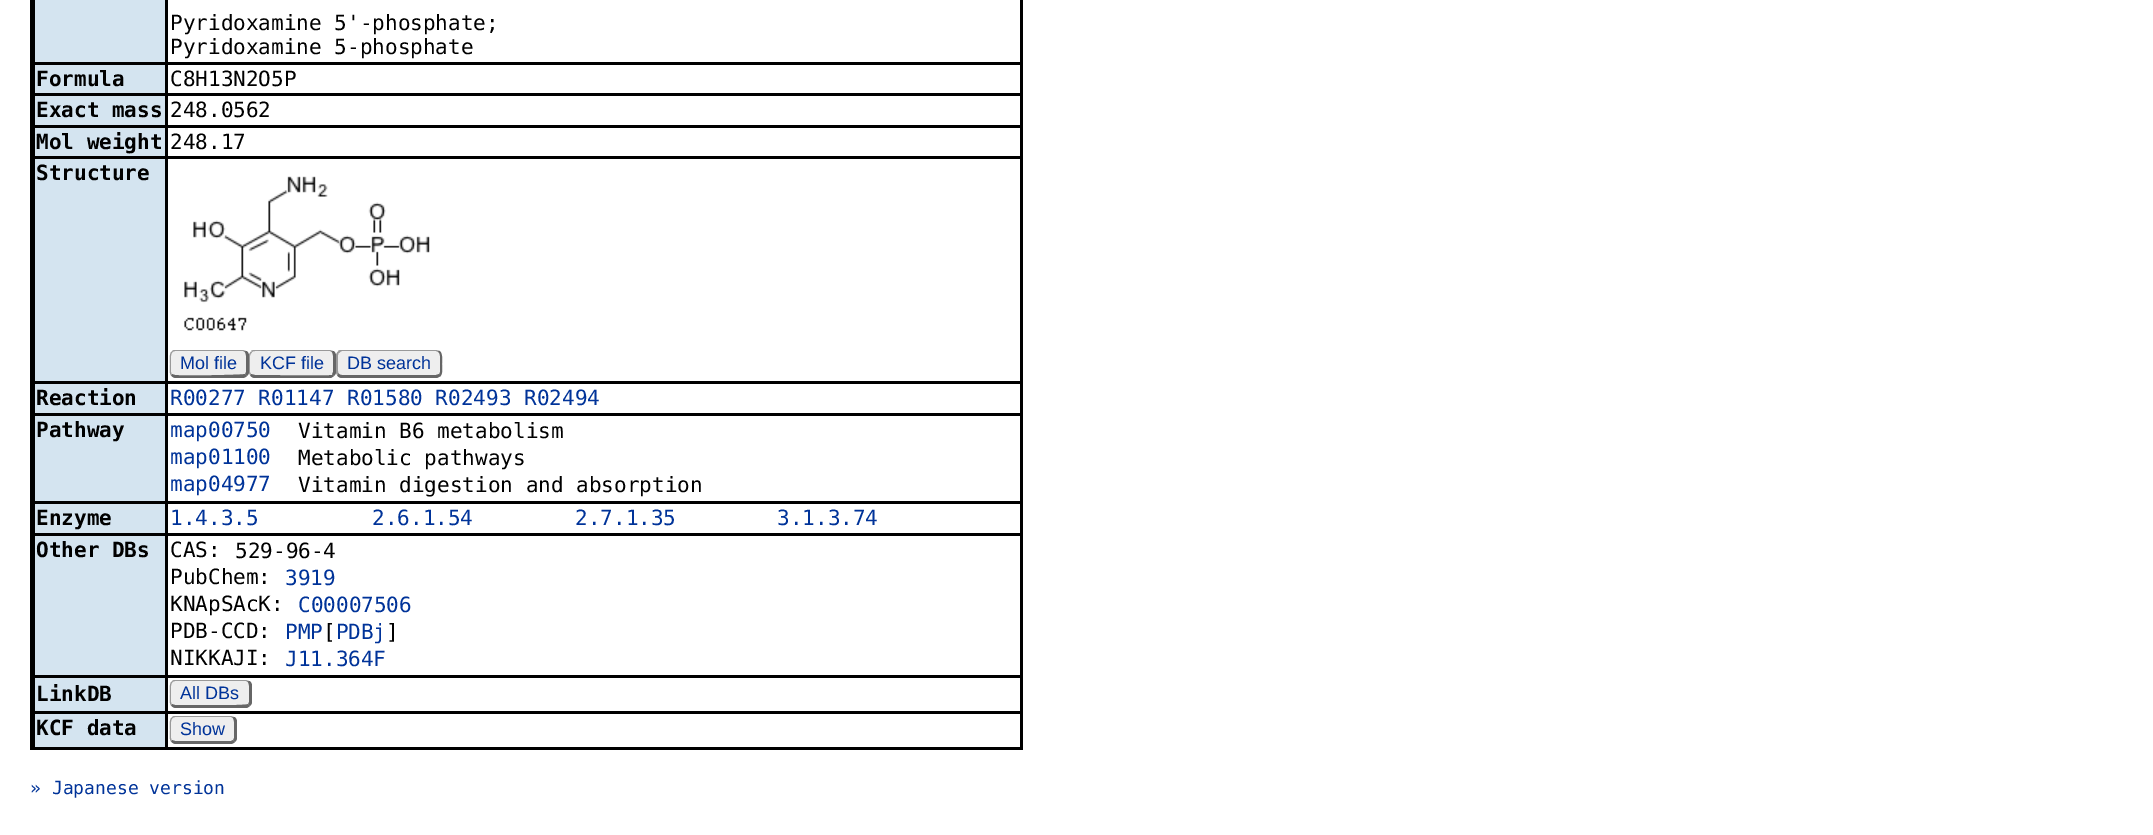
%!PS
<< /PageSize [2153 835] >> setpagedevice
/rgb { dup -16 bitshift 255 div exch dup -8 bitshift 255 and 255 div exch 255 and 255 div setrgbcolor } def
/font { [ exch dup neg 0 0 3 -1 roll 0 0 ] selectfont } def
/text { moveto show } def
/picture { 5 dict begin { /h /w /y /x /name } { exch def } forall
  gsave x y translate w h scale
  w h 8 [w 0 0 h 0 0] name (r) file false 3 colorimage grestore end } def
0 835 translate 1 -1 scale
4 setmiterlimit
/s1 { /DejaVuSansMono-Regular 21 font 16#000000 rgb } def
/s2 { /DejaVuSansMono-Bold 21 font 16#000000 rgb } def
/s3 { /LiberationSans-Regular 18 font 16#003399 rgb } def
/s4 { /DejaVuSansMono-Regular 21 font 16#003399 rgb } def
/s5 { /DejaVuSansMono-Regular 18 font 16#003399 rgb } def
16#FFFFFF rgb
0 0 2153 835 rectfill
16#000000 rgb
30 0 993 750 rectfill
16#D4E4F0 rgb
35 0 130 62 rectfill
16#FFFFFF rgb
168 0 852 62 rectfill
s1
(Pyridoxamine 5'-phosphate;) 170 30 text
(Pyridoxamine 5-phosphate) 170 54 text
16#D4E4F0 rgb
35 65 130 28 rectfill
s2
(Formula) 36 86 text
16#FFFFFF rgb
168 65 852 28 rectfill
s1
(C8H13N2O5P) 170 86 text
16#D4E4F0 rgb
35 96 130 29 rectfill
s2
(Exact mass) 36 117 text
16#FFFFFF rgb
168 96 852 29 rectfill
s1
(248.0562) 170 117 text
16#D4E4F0 rgb
35 128 130 28 rectfill
s2
(Mol weight) 36 149 text
16#FFFFFF rgb
168 128 852 28 rectfill
s1
(248.17) 170 149 text
16#D4E4F0 rgb
35 159 130 222 rectfill
s2
(Structure) 36 180 text
16#FFFFFF rgb
168 159 852 222 rectfill
(pic1.raw) 184 176 246 155 picture
16#EEEEEE rgb
176 351 moveto 243 351 lineto 245 351 246 353 246 356 curveto 246 372 lineto 246 374 245 375 243 375 curveto 176 375 lineto 173 375 171 374 171 372 curveto 171 356 lineto 171 353 173 351 176 351 curveto closepath fill
16#999999 rgb
176 350 moveto 174 350 172 350 172 352 curveto 175 351 lineto 243 351 lineto 245 352 lineto 246 351 lineto 243 350 lineto closepath fill
16#666666 rgb
246.5 351 moveto 248 352 249 353.5 249 356 curveto 249 372 lineto 249 373.5 248 375 247 376 curveto 245 374 lineto 247 372.5 246 366 246 364 curveto 246 361.5 247 354 244.5 351.5 curveto closepath fill
176 378 moveto 243 378 lineto 244 378 246 377 247 376 curveto 245 374 lineto 244 375 180 376 175 375 curveto 172 374 lineto 171 375 lineto 172 377 174 378 176 378 curveto closepath fill
16#999999 rgb
171.5 351.5 moveto 169 354 170 361 170 364 curveto 170 367 169 372.5 171 375.5 curveto 171.5 373.5 lineto 171 373 171 372.5 171 372 curveto 171 356 lineto 171 354.5 171.5 353 172.5 352.5 curveto closepath fill
s3
(Mol file) 180 369 text
16#EEEEEE rgb
255 351 moveto 330 351 lineto 332 351 333 353 333 356 curveto 333 372 lineto 333 374 332 375 330 375 curveto 255 375 lineto 253 375 250 374 250 372 curveto 250 356 lineto 250 353 253 351 255 351 curveto closepath fill
16#999999 rgb
255 350 moveto 254 350 252 350 251 351 curveto 252 352 lineto 253 351 254 351 255 351 curveto 330 351 lineto 332 352 lineto 333 351 lineto 330 350 lineto closepath fill
16#666666 rgb
333.5 351 moveto 335 352 336 353.5 336 356 curveto 336 372 lineto 336 373.5 335 375 334 376 curveto 332 374 lineto 334 372.5 333 366 333 364 curveto 333 361.5 334 354 331.5 351.5 curveto closepath fill
255 378 moveto 331 378 lineto 334 376 lineto 332 374 lineto 332 375 lineto 330 376 261 375 255 375 curveto 251 374 lineto 250 375 lineto 251 377 253 378 255 378 curveto closepath fill
16#999999 rgb
249 356 moveto 249 372 lineto 249 373 249.5 374.5 250.5 375.5 curveto 251 374 lineto 250.5 373.5 250 373 250 372 curveto 250 356 lineto 250 354.5 251 353 252 352.5 curveto 251 351.5 lineto 250 352.5 249 354 249 356 curveto closepath fill
s3
(KCF file) 260 369 text
16#EEEEEE rgb
342 351 moveto 436 351 lineto 438 351 440 353 440 356 curveto 440 372 lineto 440 374 438 375 436 375 curveto 342 375 lineto 340 375 338 374 338 372 curveto 338 356 lineto 338 353 340 351 342 351 curveto closepath fill
16#999999 rgb
342 350 moveto 341 350 339 350 338 351 curveto 339 353 lineto 340 352 341 351 342 351 curveto 436 351 lineto 438 352 lineto 440 351 lineto 436 350 lineto closepath fill
16#666666 rgb
439.5 351 moveto 443 353 442 360.5 442 364 curveto 442 367 443 373.5 440.5 376 curveto 439 374 lineto 439.5 374 440 373 440 372 curveto 440 356 lineto 440 354 439 352.5 438 351.5 curveto closepath fill
342 378 moveto 437 378 lineto 441 376 lineto 439 374 lineto 436 375 lineto 342 375 lineto 340 375 339 374 338 373 curveto 337 375 lineto 338 377 340 378 342 378 curveto closepath fill
16#999999 rgb
336 356 moveto 336 372 lineto 336 373 336.5 374.5 337.5 375.5 curveto 338.5 373.5 lineto 337.5 371.5 338 366 338 364 curveto 338 361 337 355 339 352.5 curveto 338 351.5 lineto 337 352.5 336 354 336 356 curveto closepath fill
s3
(DB search) 347 369 text
16#D4E4F0 rgb
35 384 130 29 rectfill
s2
(Reaction) 36 405 text
16#FFFFFF rgb
168 384 852 29 rectfill
s4
(R00277 R01147 R01580 R02493 R02494) 170 405 text
16#D4E4F0 rgb
35 416 130 85 rectfill
s2
(Pathway) 36 437 text
16#FFFFFF rgb
168 416 852 85 rectfill
s4
(map00750) 170 437 text
s1
(Vitamin B6 metabolism) 298 438 text
s4
(map01100) 170 464 text
s1
(Metabolic pathways) 298 465 text
s4
(map04977) 170 491 text
s1
(Vitamin digestion and absorption) 298 492 text
16#D4E4F0 rgb
35 504 130 29 rectfill
s2
(Enzyme) 36 525 text
16#FFFFFF rgb
168 504 852 29 rectfill
s4
(1.4.3.5) 170 525 text
(2.6.1.54) 372 525 text
(2.7.1.35) 575 525 text
(3.1.3.74) 777 525 text
16#D4E4F0 rgb
35 536 130 139 rectfill
s2
(Other DBs) 36 557 text
16#FFFFFF rgb
168 536 852 139 rectfill
s1
(CAS:) 170 557 text
(529-96-4) 235 558 text
(PubChem:) 170 584 text
s4
(3919) 285 585 text
s1
(KNApSAcK:) 170 611 text
s4
(C00007506) 298 612 text
s1
(PDB-CCD:) 170 638 text
s4
(PMP PDBj) 285 639 text
s1
([) 323 639 text
(]) 386 639 text
(NIKKAJI:) 170 665 text
s4
(J11.364F) 285 666 text
16#D4E4F0 rgb
35 678 130 33 rectfill
s2
(LinkDB) 36 701 text
16#FFFFFF rgb
168 678 852 33 rectfill
16#EEEEEE rgb
176 681 moveto 246 681 lineto 248 681 249 683 249 686 curveto 249 702 lineto 249 704 248 705 246 705 curveto 176 705 lineto 173 705 171 704 171 702 curveto 171 686 lineto 171 683 173 681 176 681 curveto closepath fill
16#999999 rgb
176 680 moveto 174 680 172 680 172 682 curveto 175 681 lineto 246 681 lineto 248 682 lineto 249 681 lineto 246 680 lineto closepath fill
16#666666 rgb
249.5 681 moveto 251 682 252 683.5 252 686 curveto 252 702 lineto 252 703.5 251 705 250 706 curveto 248 704 lineto 250 702.5 249 696 249 694 curveto 249 691.5 250 684 247.5 681.5 curveto closepath fill
176 708 moveto 247 708 lineto 250 706 lineto 248 704 lineto 246 706 182 705 175 705 curveto 172 704 lineto 171 705 lineto 172 707 174 708 176 708 curveto closepath fill
16#999999 rgb
171.5 681.5 moveto 169 684 170 691 170 694 curveto 170 697 169 702.5 171 705.5 curveto 171.5 703.5 lineto 171 703 171 702.5 171 702 curveto 171 686 lineto 171 684.5 171.5 683 172.5 682.5 curveto closepath fill
s3
(All DBs) 180 699 text
16#D4E4F0 rgb
35 714 130 33 rectfill
s2
(KCF data) 36 735 text
16#FFFFFF rgb
168 714 852 33 rectfill
16#EEEEEE rgb
176 717 moveto 231 717 lineto 233 717 234 719 234 722 curveto 234 738 lineto 234 740 233 741 231 741 curveto 176 741 lineto 173 741 171 740 171 738 curveto 171 722 lineto 171 719 173 717 176 717 curveto closepath fill
16#999999 rgb
176 716 moveto 174 716 172 716 172 718 curveto 175 717 lineto 231 717 lineto 233 718 lineto 234 717 lineto 231 716 lineto closepath fill
16#666666 rgb
234.5 717 moveto 236 718 237 719.5 237 722 curveto 237 738 lineto 237 739.5 236 741 235 742 curveto 233 740 lineto 235 738.5 234 732 234 730 curveto 234 727.5 235 720 232.5 717.5 curveto closepath fill
176 744 moveto 231 744 lineto 232 744 234 743 235 742 curveto 233 740 lineto 231 741 lineto 175 741 lineto 172 740 lineto 171 741 lineto 172 743 174 744 176 744 curveto closepath fill
16#999999 rgb
171.5 717.5 moveto 169 720 170 727 170 730 curveto 170 733 169 738.5 171 741.5 curveto 171.5 739.5 lineto 171 739 171 738.5 171 738 curveto 171 722 lineto 171 720.5 171.5 719 172.5 718.5 curveto closepath fill
s3
(Show) 180 735 text
s5
(» Japanese version) 30 794 text
showpage
